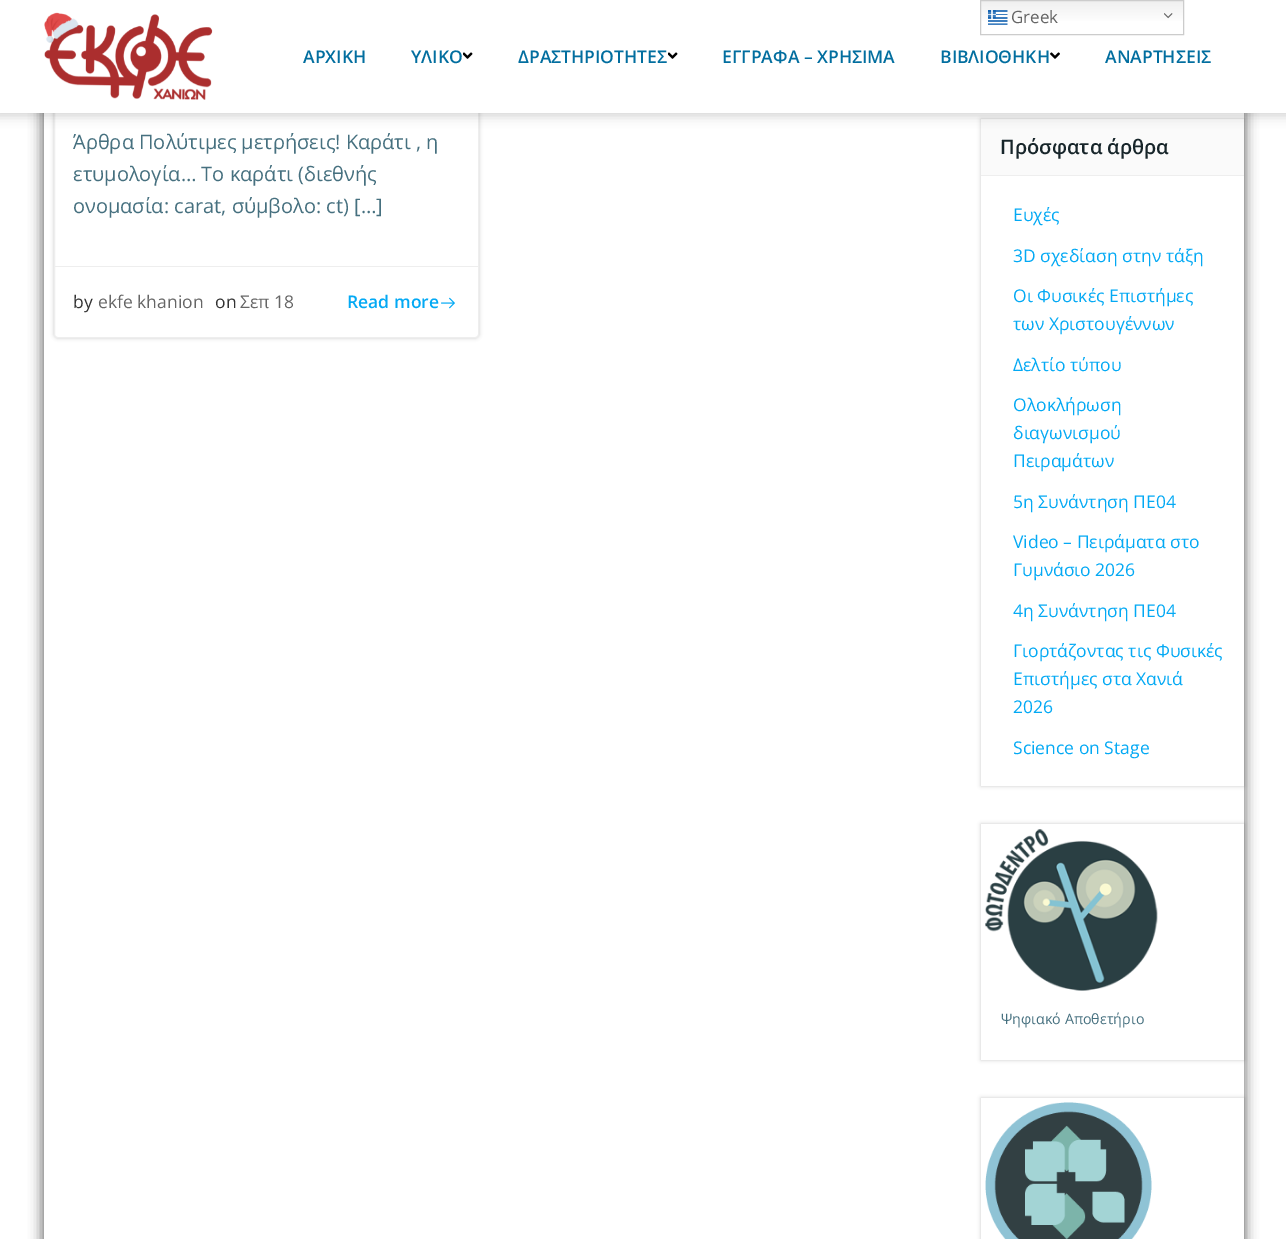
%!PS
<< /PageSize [1286 1239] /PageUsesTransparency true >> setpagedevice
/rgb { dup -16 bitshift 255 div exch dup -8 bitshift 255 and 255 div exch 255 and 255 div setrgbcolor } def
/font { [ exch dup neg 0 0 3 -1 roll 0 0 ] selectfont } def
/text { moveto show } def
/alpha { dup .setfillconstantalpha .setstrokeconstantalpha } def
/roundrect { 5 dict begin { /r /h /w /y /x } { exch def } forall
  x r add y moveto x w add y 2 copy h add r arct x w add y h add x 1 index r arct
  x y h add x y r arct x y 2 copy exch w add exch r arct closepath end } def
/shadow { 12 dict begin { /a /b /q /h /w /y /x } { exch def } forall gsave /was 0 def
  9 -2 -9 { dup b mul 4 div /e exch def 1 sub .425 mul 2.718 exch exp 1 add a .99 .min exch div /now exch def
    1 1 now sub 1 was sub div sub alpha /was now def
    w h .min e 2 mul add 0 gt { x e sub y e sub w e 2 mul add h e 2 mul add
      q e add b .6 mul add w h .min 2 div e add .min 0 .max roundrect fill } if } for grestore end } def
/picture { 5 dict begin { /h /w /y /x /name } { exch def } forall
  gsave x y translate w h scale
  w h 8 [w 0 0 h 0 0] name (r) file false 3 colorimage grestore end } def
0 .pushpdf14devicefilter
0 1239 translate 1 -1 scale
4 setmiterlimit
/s1 { /OpenSans-Regular 17 font 16#666666 rgb } def
/s2 { /OpenSans-SemiBold 17.5 font 16#026E9F rgb } def
/s3 { /OpenSans-Regular 20 font 16#46707F rgb } def
/s4 { /OpenSans-Regular 17.5 font 16#333333 rgb } def
/s5 { /OpenSans-Regular 17.5 font 16#666666 rgb } def
/s6 { /OpenSans-SemiBold 17.5 font 16#03A9F4 rgb } def
/s7 { /OpenSans-SemiBold 20 font 16#17252A rgb } def
/s8 { /OpenSans-Regular 17.5 font 16#03A9F4 rgb } def
/s9 { /OpenSans-Regular 14.25 font 16#46707F rgb } def
16#FFFFFF rgb
0 0 1286 1239 rectfill
gsave
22 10 moveto 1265 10 lineto 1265 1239 lineto 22 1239 lineto closepath 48 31 moveto 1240 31 lineto 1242 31 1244 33 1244 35 curveto 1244 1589 lineto 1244 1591 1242 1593 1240 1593 curveto 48 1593 lineto 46 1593 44 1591 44 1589 curveto 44 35 lineto 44 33 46 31 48 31 curveto closepath eoclip newpath
16#000000 rgb
41 29 1205 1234 6 6 0.5 shadow
grestore
gsave
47 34 moveto 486 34 lineto 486 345 lineto 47 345 lineto closepath 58 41 moveto 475 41 lineto 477 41 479 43 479 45 curveto 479 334 lineto 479 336 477 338 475 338 curveto 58 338 lineto 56 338 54 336 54 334 curveto 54 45 lineto 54 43 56 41 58 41 curveto closepath eoclip newpath
16#000000 rgb
54 41 425 297 4 2 0.2 shadow
grestore
16#EEEEEE rgb
54.5 41.5 424 296 3.5 roundrect stroke
gsave
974 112 moveto 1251 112 lineto 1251 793 lineto 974 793 lineto closepath 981 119 moveto 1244 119 lineto 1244 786 lineto 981 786 lineto closepath eoclip newpath
16#000000 rgb
981 119 263 667 0 2 0.2 shadow
grestore
16#FAFAFA rgb
981 119 263 56 rectfill
16#000000 rgb
-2 -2 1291 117 0 6 0.2 shadow
16#FFFFFF rgb
0 0 1286 113 rectfill
gsave 981 1 moveto 1183 1 lineto 1183 21 lineto 981 21 lineto closepath clip newpath
<< /ShadingType 2 /ColorSpace /DeviceRGB /Coords [1082 0 1082 35] /Extend [true true] /Function << /FunctionType 3 /Domain [0 1] /Functions [<< /FunctionType 2 /Domain [0 1] /C0 [0.937 0.937 0.937] /C1 [1 1 1] /N 1 >> << /FunctionType 2 /Domain [0 1] /C0 [1 1 1] /C1 [1 1 1] /N 1 >>] /Bounds [0.7] /Encode [0 1 0 1] >> >> shfill grestore
16#CCCCCC rgb
980.5 0.5 203 34 rectstroke
(pic1.raw) 988 10 20 15 picture
s1
(Greek) 1011 23 text
(pic2.raw) 1164 13 9 6 picture
(pic3.raw) 44 12 169 88 picture
s2
(ΑΡΧΙΚΗ) 303 63 text
(ΥΛΙΚΟ) 411 63 text
(pic4.raw) 463 52 10 7 picture
(ΔΡΑΣΤΗΡΙΟΤΗΤΕΣ) 518 63 text
(pic4.raw) 668 52 10 7 picture
(ΕΓΓΡΑΦΑ – ΧΡΗΣΙΜΑ) 722 63 text
(ΒΙΒΛΙΟΘΗΚΗ) 940 63 text
(pic5.raw) 1050 52 10 7 picture
(ΑΝΑΡΤΗΣΕΙΣ) 1105 63 text
s3
(Άρθρα Πολύτιμες μετρήσεις! Καράτι , η) 73 149 text
(ετυμολογία… Το καράτι \(διεθνής) 73 181 text
(ονομασία: carat, σύμβολο: ct\) […]) 73 213 text
16#EEEEEE rgb
55 266 423 1 rectfill
s4
(by) 73 308 text
s5
(ekfe khanion) 98 308 text
s4
(on) 215 308 text
s5
(Σεπ 18) 240 308 text
s6
(Read more) 347 308 text
(pic6.raw) 441 297 14 12 picture
16#EEEEEE rgb
981 175 263 1 rectfill
s7
(Πρόσφατα άρθρα) 1000 154 text
s8
(Ευχές) 1013 221 text
(3D σχεδίαση στην τάξη) 1013 262 text
(Οι Φυσικές Επιστήμες) 1013 302 text
(των Χριστουγέννων) 1013 330 text
(Δελτίο τύπου) 1013 371 text
(Ολοκλήρωση) 1013 411 text
(διαγωνισμού) 1013 439 text
(Πειραμάτων) 1013 467 text
(5η Συνάντηση ΠΕ04) 1013 508 text
(Video – Πειράματα στο) 1013 548 text
(Γυμνάσιο 2026) 1013 576 text
(4η Συνάντηση ΠΕ04) 1013 617 text
(Γιορτάζοντας τις Φυσικές) 1013 657 text
(Επιστήμες στα Χανιά) 1013 685 text
(2026) 1013 713 text
(Science on Stage) 1013 754 text
gsave
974 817 moveto 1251 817 lineto 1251 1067 lineto 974 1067 lineto closepath 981 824 moveto 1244 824 lineto 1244 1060 lineto 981 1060 lineto closepath eoclip newpath
16#000000 rgb
981 824 263 236 0 2 0.2 shadow
grestore
(pic7.raw) 985 829 173 162 picture
s9
(Ψηφιακό Αποθετήριο) 1001 1024 text
gsave
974 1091 moveto 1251 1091 lineto 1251 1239 lineto 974 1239 lineto closepath 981 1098 moveto 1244 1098 lineto 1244 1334 lineto 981 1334 lineto closepath eoclip newpath
16#000000 rgb
981 1098 263 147 0 2 0.2 shadow
grestore
(pic8.raw) 985 1102 167 137 picture
.poppdf14devicefilter showpage
